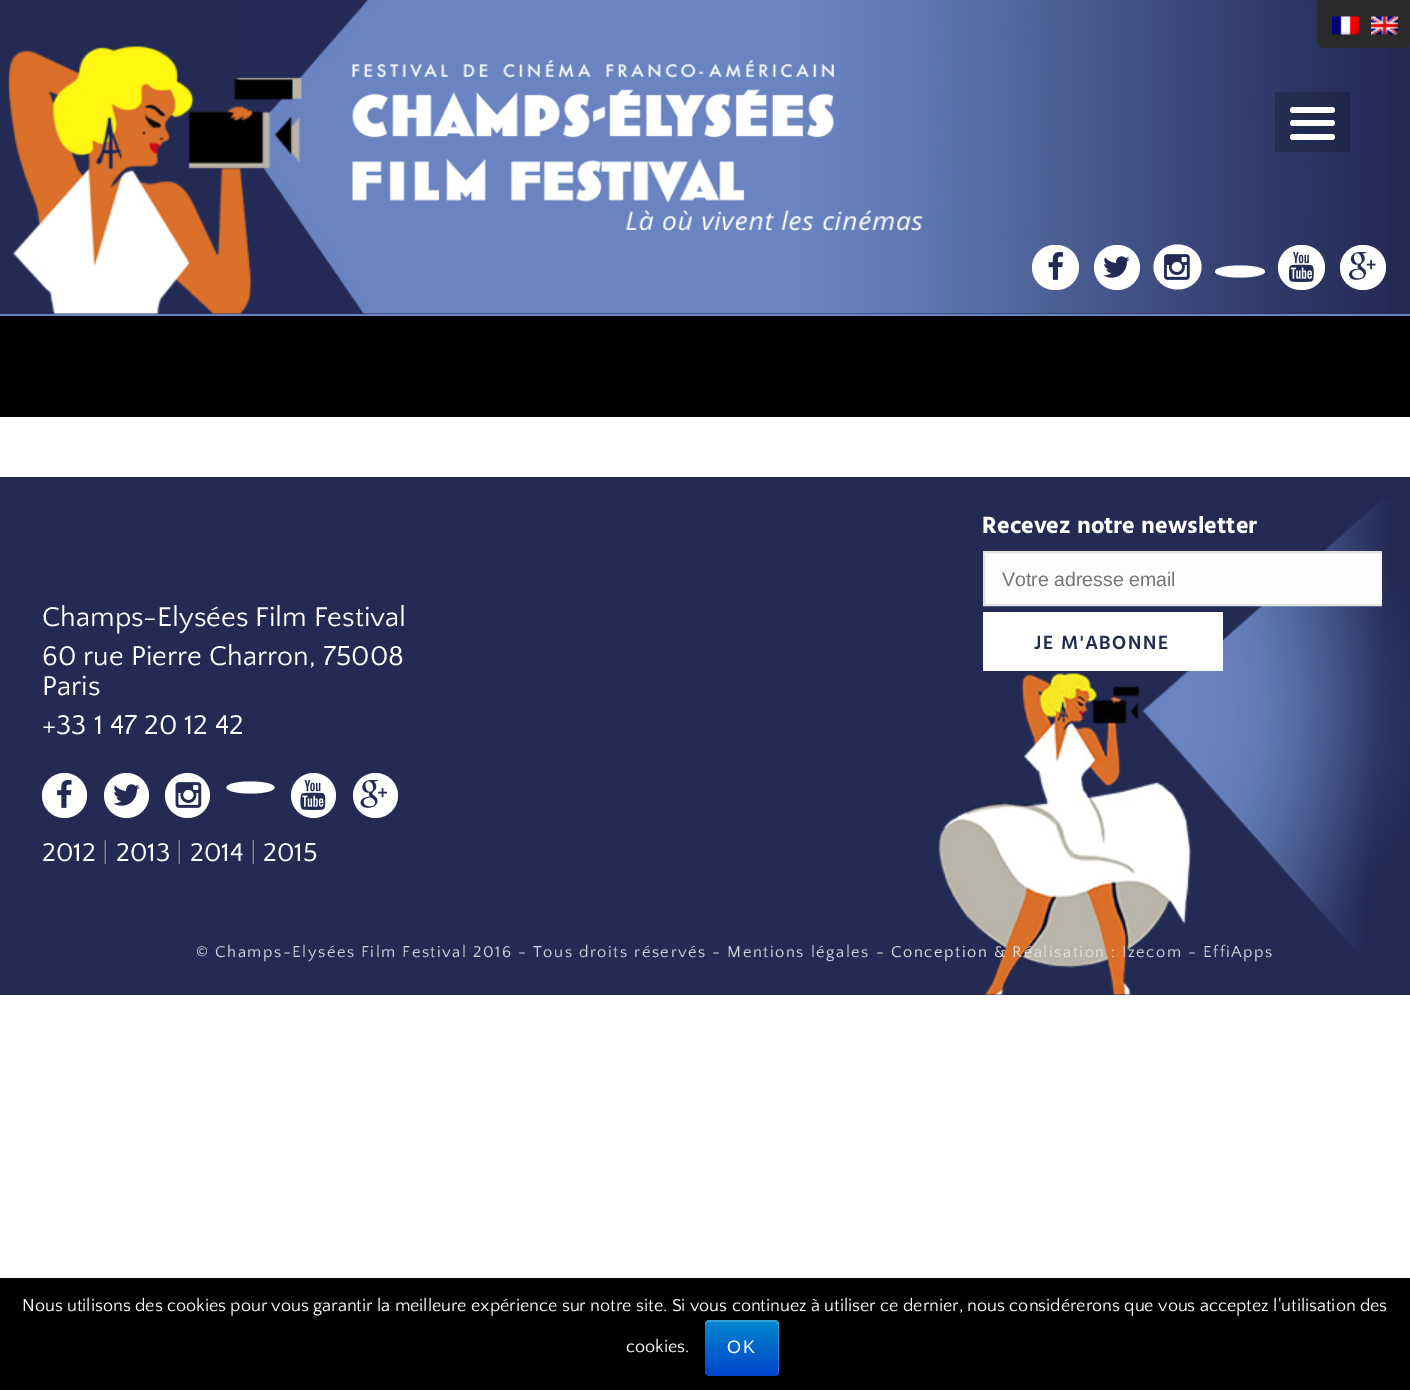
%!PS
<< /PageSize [1410 1390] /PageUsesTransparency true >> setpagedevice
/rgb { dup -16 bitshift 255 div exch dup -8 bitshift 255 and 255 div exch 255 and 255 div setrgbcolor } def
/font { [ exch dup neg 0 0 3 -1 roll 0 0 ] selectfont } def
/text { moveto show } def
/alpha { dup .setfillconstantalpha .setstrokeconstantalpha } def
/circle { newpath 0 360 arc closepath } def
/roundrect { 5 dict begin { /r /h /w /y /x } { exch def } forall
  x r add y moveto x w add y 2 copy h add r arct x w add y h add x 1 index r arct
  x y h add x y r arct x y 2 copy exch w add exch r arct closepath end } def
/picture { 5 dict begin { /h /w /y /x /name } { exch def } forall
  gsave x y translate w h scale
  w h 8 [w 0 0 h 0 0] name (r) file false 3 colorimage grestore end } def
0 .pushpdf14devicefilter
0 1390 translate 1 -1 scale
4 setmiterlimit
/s1 { /HindVadodara-Bold 24 font 16#FFFFFF rgb } def
/s2 { /LiberationSans-Regular 19.5 font 16#757575 rgb } def
/s3 { /QuattrocentoSans-Regular 28.5 font 16#FFFFFF rgb } def
/s4 { /QuattrocentoSans-Regular 27 font 16#FFFFFF rgb } def
/s5 { /QuattrocentoSans-Regular 27 font 16#808080 rgb } def
/s6 { /QuattrocentoSans-Regular 18 font 16#FFFFFF rgb } def
16#FFFFFF rgb
0 0 1410 1390 rectfill
16#6A84C1 rgb
0 314 1410 2 rectfill
16#232B55 rgb
0 0 1410 314 rectfill
(pic2.raw) 244 0 1144 314 picture
(pic1.raw) 7 46 295 268 picture
(pic3.raw) 352 60 571 171 picture
16#2A2A2A rgb
1317 0 moveto 1410 0 lineto 1410 40 lineto 1410 44.5 1406.5 48 1402 48 curveto 1325 48 lineto 1320.5 48 1317 44.5 1317 40 curveto closepath fill
(pic4.raw) 1332 16 27 19 picture
(pic5.raw) 1371 16 27 19 picture
0.2 alpha
16#000000 rgb
1275 92 75 60 rectfill
1 alpha
16#FFFFFF rgb
1290 107 45 6 3 roundrect fill
1290 120 45 6 3 roundrect fill
1290 134 45 6 3 roundrect fill
1032 245 47 45 22.5 roundrect fill
(pic6.raw) 1048 252 16 28 picture
1094 245 46 45 22.5 roundrect fill
(pic7.raw) 1103 256 27 22 picture
1177.5 244.5 moveto 1191 244.5 1201.5 254.5 1201.5 267 curveto 1201.5 279.5 1191 289.5 1177.5 289.5 curveto 1164 289.5 1153.5 279.5 1153.5 267 curveto 1153.5 254.5 1164 244.5 1177.5 244.5 curveto closepath fill
(pic8.raw) 1164 254 26 26 picture
1240 265.5 moveto 1254 265.5 1265 268 1265 271.5 curveto 1265 275 1254 277.5 1240 277.5 curveto 1226 277.5 1215 275 1215 271.5 curveto 1215 268 1226 265.5 1240 265.5 curveto closepath fill
1278 245 47 45 22.5 roundrect fill
(pic9.raw) 1288 252 26 30 picture
1340 245 46 45 22.5 roundrect fill
(pic10.raw) 1349 252 27 28 picture
16#000000 rgb
0 316 1410 101 rectfill
16#232B55 rgb
0 477 1410 518 rectfill
(pic11.raw) 938 499 472 496 picture
s1
(Recevez notre newsletter) 982 533 text
16#FDFDFD rgb
985 553 397 51 rectfill
gsave
983 507 399 164 rectclip
16#E3E3E3 rgb
2 setlinewidth
984 552 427 53 rectstroke
grestore
s2
(Votre adresse email) 1002 586 text
16#FFFFFF rgb
983 612 240 59 rectfill
/HindVadodara-SemiBold 19.5 font
16#232B55 rgb
1034 649 moveto 1.5 0 (JE M'ABONNE) ashow
s3
(Champs-Elysées Film Festival) 42 626 text
(60 rue Pierre Charron, 75008) 42 665 text
(Paris) 42 695 text
(+33 1 47 20 12 42) 42 734 text
64.5 795.5 22.5 circle fill
(pic12.raw) 57 780 15 28 picture
126.5 795.5 22.5 circle fill
(pic7.raw) 113 784 27 22 picture
187.5 795.5 22.5 circle fill
(pic13.raw) 175 782 27 26 picture
250.5 781.5 moveto 264 781.5 274.5 784 274.5 787.5 curveto 274.5 791 264 793.5 250.5 793.5 curveto 237 793.5 226.5 791 226.5 787.5 curveto 226.5 784 237 781.5 250.5 781.5 curveto closepath fill
313.5 795.5 22.5 circle fill
(pic14.raw) 300 780 26 30 picture
375.5 795.5 22.5 circle fill
(pic15.raw) 360 780 28 28 picture
s4
(2012) 42 861 text
s5
(|) 102 861 text
s4
(2013) 116 861 text
s5
(|) 176 861 text
s4
(2014) 190 861 text
s5
(|) 250 861 text
s4
(2015) 263 861 text
/QuattrocentoSans-Regular 16.5 font
16#D3D5DD rgb
196 957 moveto 1.5 0 (© Champs-Elysées Film Festival 2016 - Tous droits réservés - Mentions légales) ashow
16#E1E0E2 rgb
876 957 moveto 1.5 0 (- Conception & Réalisation :) ashow
16#D3D5DD rgb
1122 957 moveto 1.5 0 (Izecom) ashow
1188 957 moveto 1.5 0 (- EffiApps) ashow
16#000000 rgb
0 1278 1410 112 rectfill
s6
(Nous utilisons des cookies pour vous garantir la meilleure expérience sur notre site. Si vous continuez à utiliser ce dernier, nous considérerons que vous acceptez l'utilisation des) 22 1311 text
(cookies.) 626 1352 text
gsave 705 1320 74 56 5 roundrect clip newpath
<< /ShadingType 2 /ColorSpace /DeviceRGB /Coords [742 1320 742 1376] /Extend [true true] /Function << /FunctionType 2 /Domain [0 1] /C0 [0 0.533 0.8] /C1 [0 0.267 0.8] /N 1 >> >> shfill grestore
0.2 alpha
710 1322 moveto 774 1322 lineto 776 1322 778 1324 778 1326 curveto 778 1372 lineto 777 1375 lineto 778 1374 779 1372 779 1371 curveto 779 1325 lineto 779 1322 777 1320 774 1320 curveto 710 1320 lineto 707 1320 705 1322 705 1325 curveto 705 1326 lineto 705 1324 707 1322 710 1322 curveto closepath fill
/LiberationSans-Regular 18 font
1 alpha
727 1353 moveto 1.5 0 (OK) ashow
.poppdf14devicefilter showpage
